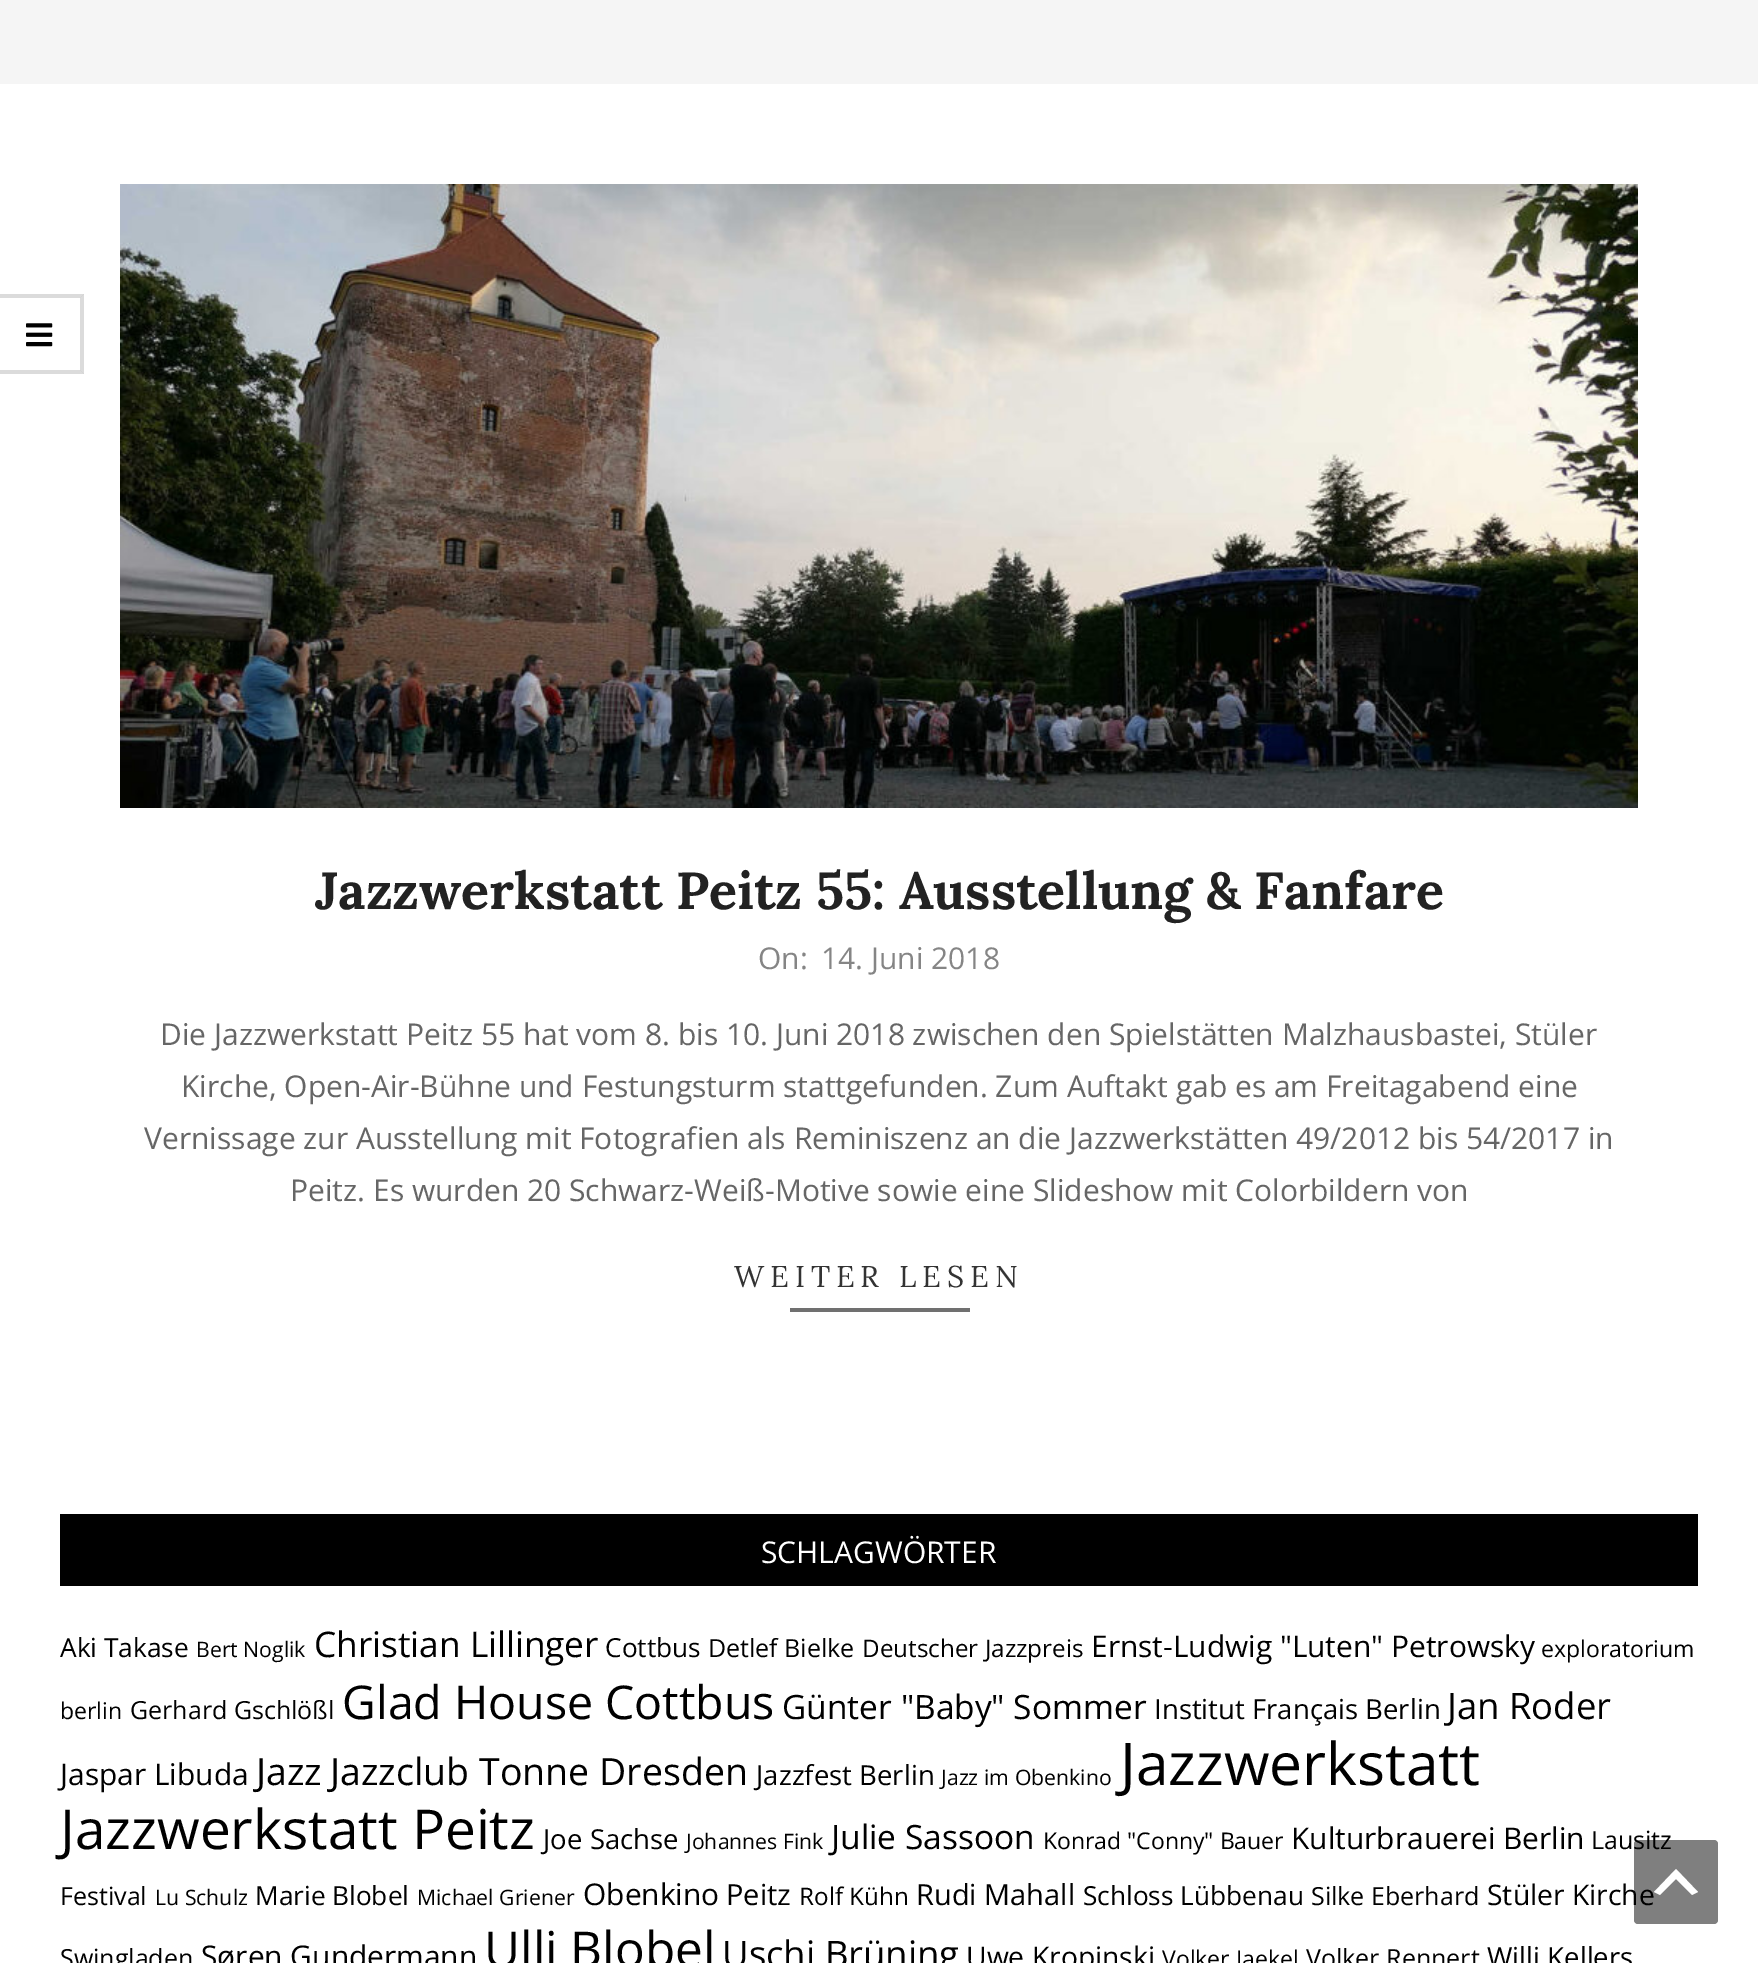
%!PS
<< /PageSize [1758 1963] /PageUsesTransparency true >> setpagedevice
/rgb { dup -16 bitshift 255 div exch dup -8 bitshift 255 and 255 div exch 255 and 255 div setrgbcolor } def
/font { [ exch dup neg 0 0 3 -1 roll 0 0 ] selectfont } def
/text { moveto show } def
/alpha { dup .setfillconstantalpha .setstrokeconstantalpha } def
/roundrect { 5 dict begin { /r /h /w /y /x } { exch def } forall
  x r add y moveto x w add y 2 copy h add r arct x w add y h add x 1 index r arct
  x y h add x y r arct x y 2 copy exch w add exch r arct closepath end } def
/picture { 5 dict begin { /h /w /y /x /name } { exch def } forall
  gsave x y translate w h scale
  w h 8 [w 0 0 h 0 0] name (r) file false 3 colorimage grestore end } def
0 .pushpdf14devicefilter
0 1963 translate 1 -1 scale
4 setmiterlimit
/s1 { /Lora-Bold 52 font 16#222222 rgb } def
/s2 { /OpenSans-Regular 30 font 16#858585 rgb } def
/s3 { /OpenSans-Regular 30 font 16#666666 rgb } def
/s4 { /OpenSans-Regular 30 font 16#FFFFFF rgb } def
/s5 { /OpenSans-Regular 26.25 font 16#000000 rgb } def
/s6 { /OpenSans-Regular 21.25 font 16#000000 rgb } def
/s7 { /OpenSans-Regular 35.25 font 16#000000 rgb } def
/s8 { /OpenSans-Regular 25 font 16#000000 rgb } def
/s9 { /OpenSans-Regular 24.25 font 16#000000 rgb } def
/s10 { /OpenSans-Regular 29.9 font 16#000000 rgb } def
/s11 { /OpenSans-Regular 23 font 16#000000 rgb } def
/s12 { /OpenSans-Regular 46.5 font 16#000000 rgb } def
/s13 { /OpenSans-Regular 33.5 font 16#000000 rgb } def
/s14 { /OpenSans-Regular 27.5 font 16#000000 rgb } def
/s15 { /OpenSans-Regular 36.5 font 16#000000 rgb } def
/s16 { /OpenSans-Regular 37.5 font 16#000000 rgb } def
/s17 { /OpenSans-Regular 58.75 font 16#000000 rgb } def
/s18 { /OpenSans-Regular 55 font 16#000000 rgb } def
/s19 { /OpenSans-Regular 29 font 16#000000 rgb } def
/s20 { /OpenSans-Regular 28.25 font 16#000000 rgb } def
/s21 { /OpenSans-Regular 49.5 font 16#000000 rgb } def
16#FFFFFF rgb
0 0 1758 1963 rectfill
16#DBDBDB rgb
0 294 moveto 84 294 lineto 80 298 lineto 0 298 lineto closepath fill
0.14 alpha
16#000000 rgb
84 294 moveto 84 374 lineto 80 370 lineto 80 298 lineto closepath fill
84 374 moveto 0 374 lineto 0 370 lineto 80 370 lineto closepath fill
1 alpha
(pic1.raw) 26 323 27 24 picture
16#F5F5F5 rgb
0 0 1758 84 rectfill
(pic2.raw) 120 184 1518 624 picture
s1
(Jazzwerkstatt Peitz 55: Ausstellung & Fanfare) 315 909 text
s2
(On:) 758 969 text
(14. Juni 2018) 821 969 text
s3
(Die Jazzwerkstatt Peitz 55 hat vom 8. bis 10. Juni 2018 zwischen den Spielstätten Malzhausbastei, Stüler) 160 1045 text
(Kirche, Open-Air-Bühne und Festungsturm stattgefunden. Zum Auftakt gab es am Freitagabend eine) 181 1097 text
(Vernissage zur Ausstellung mit Fotografien als Reminiszenz an die Jazzwerkstätten 49/2012 bis 54/2017 in) 144 1149 text
(Peitz. Es wurden 20 Schwarz-Weiß-Motive sowie eine Slideshow mit Colorbildern von) 290 1201 text
/Lora-Regular 30 font
16#333333 rgb
734 1287 moveto 6 0 (WEITER LESEN) ashow
16#707070 rgb
790 1308 180 4 rectfill
16#000000 rgb
60 1514 1638 72 rectfill
s4
(SCHLAGWÖRTER) 761 1563 text
s5
(Aki Takase) 60 1657 text
s6
(Bert Noglik) 196 1657 text
s7
(Christian Lillinger) 314 1657 text
s5
(Cottbus) 605 1657 text
s8
(Detlef Bielke) 708 1657 text
s9
(Deutscher Jazzpreis) 862 1657 text
s10
(Ernst-Ludwig "Luten" Petrowsky) 1091 1657 text
s11
(exploratorium) 1541 1657 text
(berlin) 60 1719 text
s8
(Gerhard Gschlößl) 130 1719 text
s12
(Glad House Cottbus) 342 1719 text
s13
(Günter "Baby" Sommer) 782 1719 text
s14
(Institut Français Berlin) 1154 1719 text
s15
(Jan Roder) 1447 1719 text
s10
(Jaspar Libuda) 60 1785 text
s16
(Jazz) 256 1785 text
(Jazzclub Tonne Dresden) 330 1785 text
s14
(Jazzfest Berlin) 756 1785 text
s6
(Jazz im Obenkino) 941 1785 text
s17
(Jazzwerkstatt) 1120 1785 text
s18
(Jazzwerkstatt Peitz) 60 1849 text
s14
(Joe Sachse) 543 1849 text
s6
(Johannes Fink) 686 1849 text
s13
(Julie Sassoon) 831 1849 text
s11
(Konrad "Conny" Bauer) 1043 1849 text
s10
(Kulturbrauerei Berlin) 1291 1849 text
s8
(Lausitz) 1591 1849 text
(Festival) 60 1905 text
s6
(Lu Schulz) 155 1905 text
s5
(Marie Blobel) 255 1905 text
s6
(Michael Griener) 417 1905 text
s10
(Obenkino) 583 1905 text
s19
(Peitz) 726 1905 text
s9
(Rolf Kühn) 799 1905 text
s19
(Rudi Mahall) 916 1905 text
s5
(Schloss Lübbenau) 1083 1905 text
s8
(Silke Eberhard) 1311 1905 text
s20
(Stüler Kirche) 1487 1905 text
s8
(Swingladen) 60 1967 text
s10
(Søren Gundermann) 201 1967 text
s21
(Ulli Blobel) 484 1967 text
s15
(Uschi Brüning) 722 1967 text
s20
(Uwe Kropinski) 966 1967 text
s11
(Volker Jaekel) 1162 1967 text
s8
(Volker Rennert) 1306 1967 text
s14
(Willi Kellers) 1487 1967 text
0.5 alpha
1634 1840 84 84 4 roundrect fill
1 alpha
16#FFFFFF rgb
1692 1895 moveto 1676 1879 lineto 1660 1895 lineto 1654 1892 lineto 1676 1869 lineto 1698 1892 lineto closepath fill
.poppdf14devicefilter showpage
